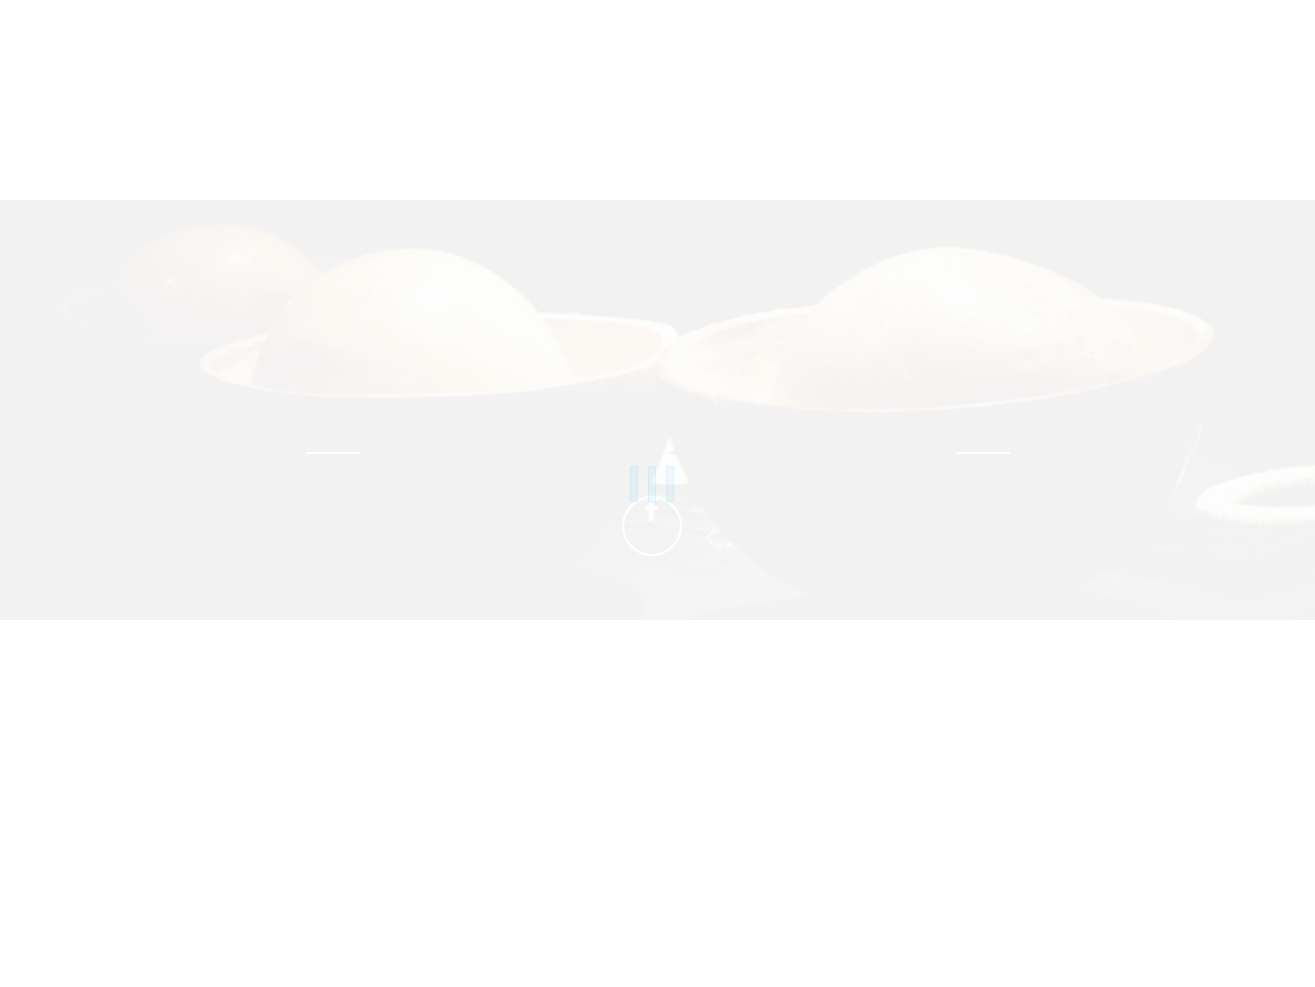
%!PS
<< /PageSize [1315 987] /PageUsesTransparency true >> setpagedevice
/rgb { dup -16 bitshift 255 div exch dup -8 bitshift 255 and 255 div exch 255 and 255 div setrgbcolor } def
/alpha { dup .setfillconstantalpha .setstrokeconstantalpha } def
/circle { newpath 0 360 arc closepath } def
/picture { 5 dict begin { /h /w /y /x /name } { exch def } forall
  gsave x y translate w h scale
  w h 8 [w 0 0 h 0 0] name (r) file false 3 colorimage grestore end } def
0 .pushpdf14devicefilter
0 987 translate 1 -1 scale
4 setmiterlimit
16#FFFFFF rgb
0 0 1315 987 rectfill
(pic1.raw) 0 200 1315 420 picture
16#FEFEFE rgb
306 452 54 2 rectfill
956 452 54 2 rectfill
2 setlinewidth
652 526 29 circle stroke
(pic2.raw) 645 498 13 23 picture
0.06 alpha
16#00A9FF rgb
630 466 8 36 rectfill
1 setlinewidth
630.5 466.5 7 35 rectstroke
648 466 8 36 rectfill
648.5 466.5 7 35 rectstroke
666 466 8 36 rectfill
666.5 466.5 7 35 rectstroke
.poppdf14devicefilter showpage
